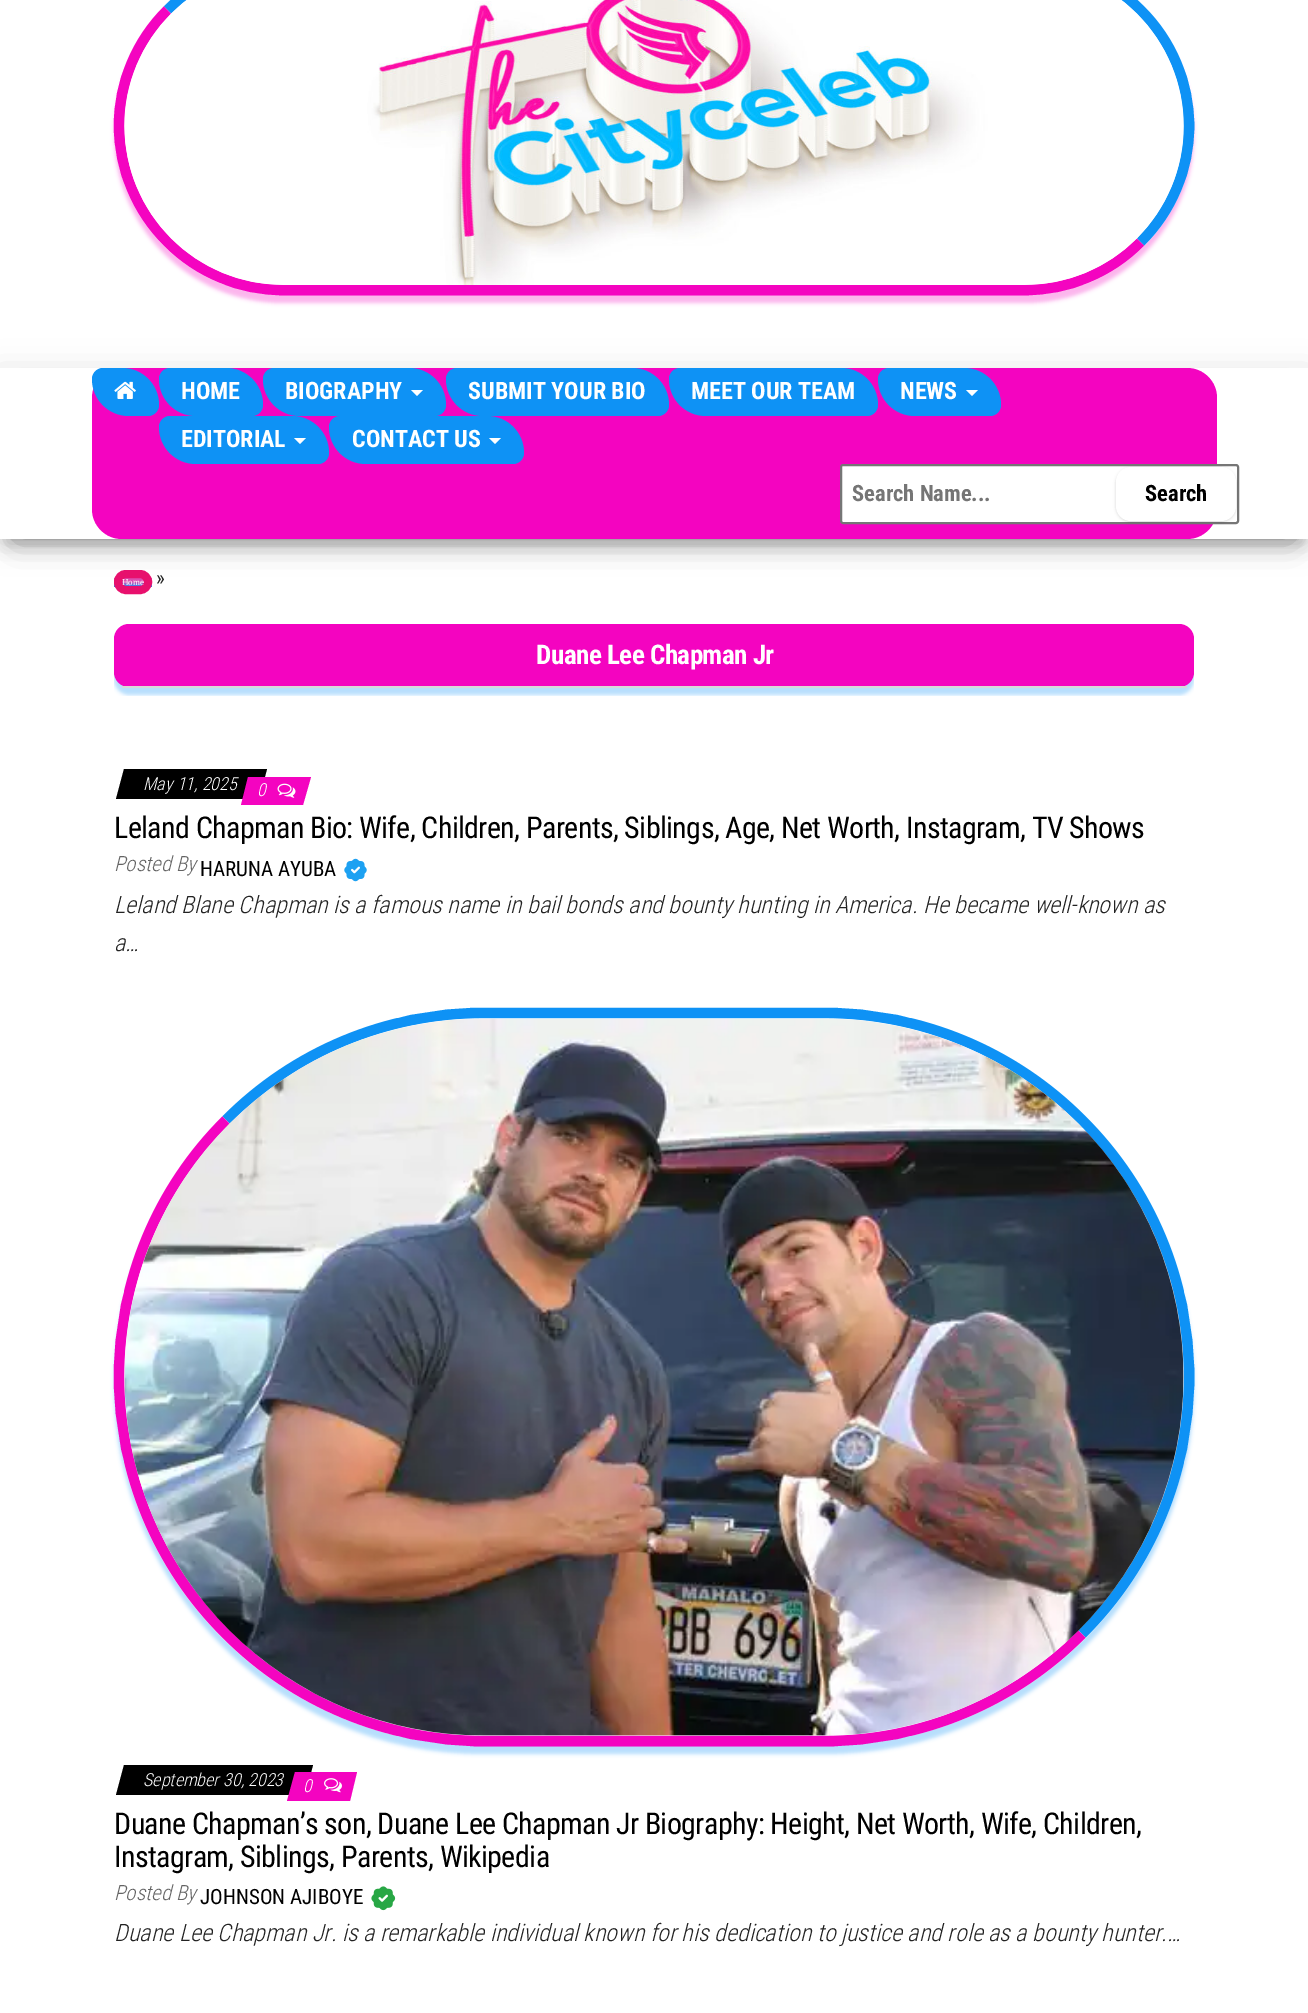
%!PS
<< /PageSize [1308 2013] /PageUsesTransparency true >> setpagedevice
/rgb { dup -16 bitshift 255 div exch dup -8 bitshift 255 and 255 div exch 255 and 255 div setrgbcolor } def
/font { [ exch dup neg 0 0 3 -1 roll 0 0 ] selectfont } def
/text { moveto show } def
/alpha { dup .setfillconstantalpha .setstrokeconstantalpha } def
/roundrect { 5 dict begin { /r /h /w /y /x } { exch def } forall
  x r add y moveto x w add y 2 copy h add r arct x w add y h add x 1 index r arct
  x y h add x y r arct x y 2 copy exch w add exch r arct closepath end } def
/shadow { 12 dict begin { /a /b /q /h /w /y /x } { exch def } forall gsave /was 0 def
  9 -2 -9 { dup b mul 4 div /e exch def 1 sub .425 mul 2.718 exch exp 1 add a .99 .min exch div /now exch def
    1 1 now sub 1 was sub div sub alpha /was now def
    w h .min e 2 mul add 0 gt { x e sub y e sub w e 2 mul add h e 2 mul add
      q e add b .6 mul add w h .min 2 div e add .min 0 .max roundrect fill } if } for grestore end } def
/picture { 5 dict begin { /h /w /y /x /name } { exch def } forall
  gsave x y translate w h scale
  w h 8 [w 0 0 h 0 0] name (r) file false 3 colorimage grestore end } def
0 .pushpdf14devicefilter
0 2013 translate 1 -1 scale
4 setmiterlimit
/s1 { /RobotoCondensed-Bold 24 font 16#FFFFFF rgb } def
/s2 { /RobotoCondensed-Bold 22.5 font 16#757575 rgb } def
/s3 { /RobotoCondensed-Bold 22.5 font 16#000000 rgb } def
/s4 { /LiberationSerif-Regular 9 font 16#FFFFFF rgb } def
/s5 { /RobotoCondensed-Regular 21 font 16#222222 rgb } def
/s6 { /RobotoCondensed-LightItalic 18 font 16#FFFFFF rgb } def
/s7 { /RobotoCondensed-LightItalic 21 font 16#646464 rgb } def
/s8 { /RobotoCondensed-Regular 21 font 16#000000 rgb } def
/s9 { /RobotoCondensed-LightItalic 24 font 16#222222 rgb } def
16#FFFFFF rgb
0 0 1308 2013 rectfill
16#F404C0 rgb
114 -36 1080 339 169.5 2 0.3 shadow
16#0E92F5 rgb
10.5 setlinewidth
167.5 10 moveto 198 -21 240 -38 283.5 -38 curveto 1024.5 -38 lineto 1068 -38 1110 -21 1140.5 10 curveto 1171.5 40.5 1189 82.5 1189 126 curveto 1189 169.5 1171.5 211.5 1140.5 242 curveto stroke
16#F404C0 rgb
1140.5 242 moveto 1110 273 1068 290 1024.5 290 curveto 283.5 290 lineto 240 290 198 273 167.5 242 curveto 136.5 211.5 119.5 169.5 119 126 curveto 119 82.5 136.5 40.5 167.5 10 curveto stroke
(pic1.raw) 124 0 1060 285 picture
16#000000 rgb
8 387 1293 156 0 7.5 0.2 shadow
gsave
114 570 38 24 12 roundrect clip newpath
gsave 114 578 moveto 152 578 lineto 152 587 lineto 114 587 lineto closepath clip newpath
<< /ShadingType 2 /ColorSpace /DeviceRGB /Coords [133 578 133 587] /Extend [true true] /Function << /FunctionType 3 /Domain [0 1] /Functions [<< /FunctionType 2 /Domain [0 1] /C0 [0.859 0.306 0.694] /C1 [0.859 0.306 0.694] /N 1 >> << /FunctionType 2 /Domain [0 1] /C0 [0.859 0.306 0.694] /C1 [0.055 0.573 0.961] /N 1 >>] /Bounds [0.45] /Encode [0 1 0 1] >> >> shfill grestore
grestore
16#E8106D rgb
8 setlinewidth
118 574 30 16 8 roundrect stroke
16#000000 rgb
0 372 1308 171 0 15 0.12 shadow
18 401 1272 135 0 15 0.42 shadow
16#FFFFFF rgb
0 368 1308 171 rectfill
16#F404C0 rgb
92 368 1125 171 30 roundrect fill
16#0E92F5 rgb
103 368 moveto 122 368 lineto 142.5 368 159 384.5 159 405 curveto 159 411 154 416 148 416 curveto 129 416 lineto 108.5 416 92 399.5 92 379 curveto 92 373 97 368 103 368 curveto closepath fill
(pic2.raw) 114 381 22 18 picture
170 368 moveto 226 368 lineto 246.5 368 263 384.5 263 405 curveto 263 411 258 416 252 416 curveto 196 416 lineto 175.5 416 159 399.5 159 379 curveto 159 373 164 368 170 368 curveto closepath fill
s1
(HOME) 181 399 text
16#0E92F5 rgb
274 368 moveto 409 368 lineto 429.5 368 446 384.5 446 405 curveto 446 411 441 416 435 416 curveto 300 416 lineto 279.5 416 263 399.5 263 379 curveto 263 373 268 368 274 368 curveto closepath fill
s1
(BIOGRAPHY) 285 399 text
411 390 moveto 423 390 lineto 417 396 lineto closepath fill
16#0E92F5 rgb
457 368 moveto 632 368 lineto 652.5 368 669 384.5 669 405 curveto 669 411 664 416 658 416 curveto 483 416 lineto 462.5 416 446 399.5 446 379 curveto 446 373 451 368 457 368 curveto closepath fill
s1
(SUBMIT YOUR BIO) 468 399 text
16#0E92F5 rgb
680 368 moveto 841 368 lineto 861.5 368 878 384.5 878 405 curveto 878 411 873 416 867 416 curveto 706 416 lineto 685.5 416 669 399.5 669 379 curveto 669 373 674 368 680 368 curveto closepath fill
s1
(MEET OUR TEAM) 691 399 text
16#0E92F5 rgb
889 368 moveto 964 368 lineto 984.5 368 1001 384.5 1001 405 curveto 1001 411 996 416 990 416 curveto 915 416 lineto 894.5 416 878 399.5 878 379 curveto 878 373 883 368 889 368 curveto closepath fill
s1
(NEWS) 900 399 text
966 390 moveto 978 390 lineto 972 396 lineto closepath fill
16#0E92F5 rgb
170 416 moveto 292 416 lineto 312.5 416 329 432.5 329 453 curveto 329 459 324 464 318 464 curveto 196 464 lineto 175.5 464 159 447.5 159 427 curveto 159 421 164 416 170 416 curveto closepath fill
s1
(EDITORIAL) 181 447 text
294 438 moveto 306 438 lineto 300 444 lineto closepath fill
16#0E92F5 rgb
340 416 moveto 487 416 lineto 507.5 416 524 432.5 524 453 curveto 524 459 519 464 513 464 curveto 366 464 lineto 345.5 464 329 447.5 329 427 curveto 329 421 334 416 340 416 curveto closepath fill
s1
(CONTACT US) 352 447 text
489 438 moveto 501 438 lineto 495 444 lineto closepath fill
841 465 397 58 2 roundrect gsave fill grestore
16#767676 rgb
2 setlinewidth
stroke
s2
(Search Name...) 852 501 text
16#000000 rgb
1116 468 120 54 15 1.5 0.15 shadow
16#FFFFFF rgb
1116 467 120 54 15 roundrect fill
s3
(Search) 1145 501 text
s4
(Home) 122 585 text
s5
(») 156 585 text
gsave
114 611 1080 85 rectclip
16#0E92F5 rgb
114 632 1080 63 15 2 0.3 shadow
grestore
16#F404C0 rgb
114 624 1080 63 15 roundrect fill
16#D9D9D9 rgb
122 686 1065 2 rectfill
/RobotoCondensed-Bold 27 font
16#FFFFFF rgb
536 664 moveto -0.5 0 (Duane Lee Chapman Jr) ashow
16#000000 rgb
124 769 moveto 267 769 lineto 259 799 lineto 116 799 lineto closepath fill
s6
(May 11, 2025) 143 790 text
16#F404C0 rgb
248 777 moveto 311 777 lineto 303 805 lineto 241 805 lineto closepath fill
s6
(0) 257 796 text
(pic3.raw) 277 783 19 15 picture
/RobotoCondensed-Regular 30 font
16#000000 rgb
114 838 moveto -0.1 0 32 -0.6 0 (Leland Chapman Bio: Wife, Children, Parents, Siblings, Age, Net Worth, Instagram, TV Shows) awidthshow
s7
(Posted By) 114 871 text
s8
(HARUNA AYUBA) 200 876 text
(pic4.raw) 344 858 23 24 picture
s9
(Leland Blane Chapman is a famous name in bail bonds and bounty hunting in America. He became well-known as) 114 913 text
(a…) 114 951 text
16#0E92F5 rgb
114 1016 1080 738 369 2 0.3 shadow
10.5 setlinewidth
226 1120 moveto 294 1051.5 386.5 1013 483 1013 curveto 825 1013 lineto 921.5 1013 1014 1051.5 1082 1120 curveto 1150.5 1188 1189 1280.5 1189 1377 curveto 1189 1473.5 1150.5 1566 1082 1634 curveto stroke
16#F404C0 rgb
1082 1634 moveto 1014 1702.5 921.5 1741 825 1741 curveto 483 1741 lineto 386.5 1741 294 1702.5 226 1634 curveto 157.5 1566 119.5 1473.5 119 1377 curveto 119 1280.5 157.5 1188 226 1120 curveto stroke
(pic5.raw) 124 1018 1060 718 picture
16#000000 rgb
124 1765 moveto 313 1765 lineto 305 1795 lineto 116 1795 lineto closepath fill
s6
(September 30, 2023) 143 1786 text
16#F404C0 rgb
295 1772 moveto 357 1772 lineto 350 1801 lineto 287 1801 lineto closepath fill
s6
(0) 303 1792 text
(pic6.raw) 324 1778 18 15 picture
/RobotoCondensed-Regular 30 font
16#000000 rgb
114 1834 moveto -0.1 0 32 -0.6 0 (Duane Chapman’s son, Duane Lee Chapman Jr Biography: Height, Net Worth, Wife, Children,) awidthshow
114 1867 moveto -0.6 0 (Instagram, Siblings, Parents, Wikipedia) ashow
s7
(Posted By) 114 1900 text
s8
(JOHNSON AJIBOYE) 200 1904 text
(pic7.raw) 371 1886 25 25 picture
s9
(Duane Lee Chapman Jr. is a remarkable individual known for his dedication to justice and role as a bounty hunter.…) 114 1941 text
.poppdf14devicefilter showpage
